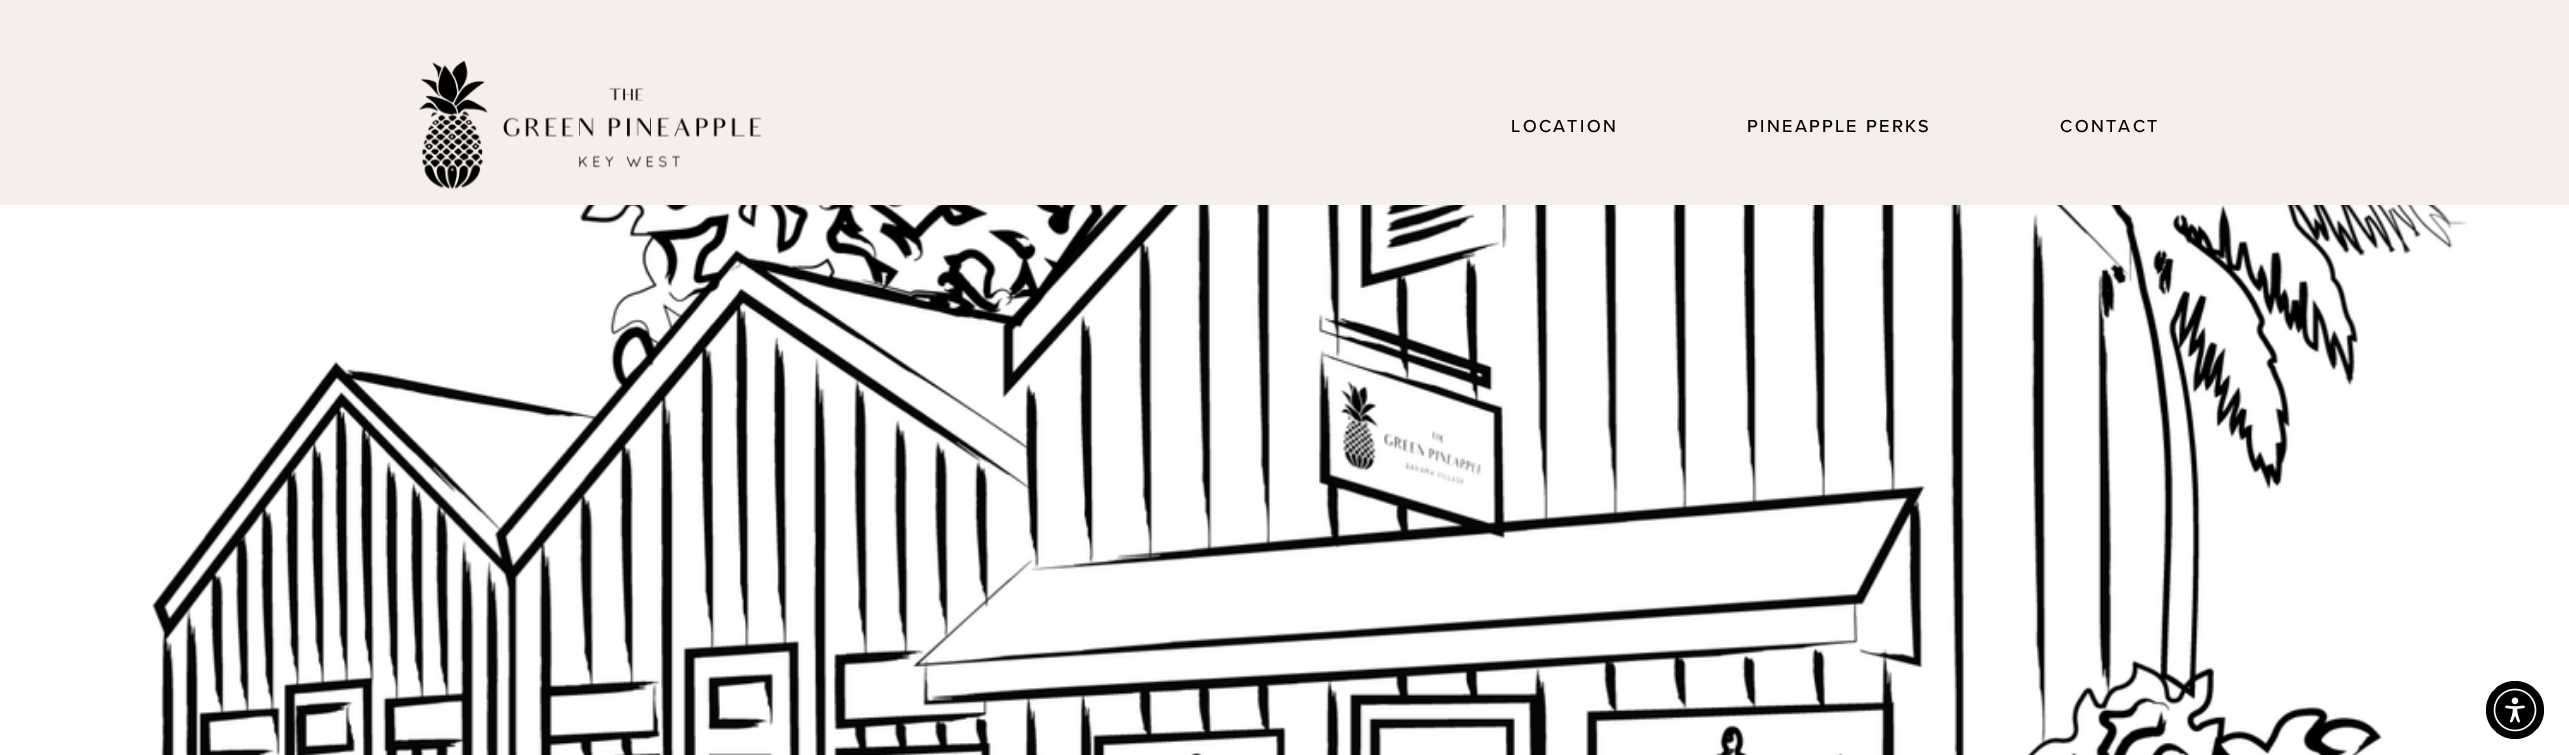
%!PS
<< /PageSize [2569 755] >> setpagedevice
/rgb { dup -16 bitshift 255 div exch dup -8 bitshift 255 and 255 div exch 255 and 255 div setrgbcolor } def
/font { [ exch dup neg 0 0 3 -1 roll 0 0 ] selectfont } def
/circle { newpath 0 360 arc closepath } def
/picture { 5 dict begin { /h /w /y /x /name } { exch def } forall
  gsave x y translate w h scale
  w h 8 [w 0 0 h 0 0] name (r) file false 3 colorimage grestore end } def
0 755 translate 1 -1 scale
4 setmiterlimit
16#FFFFFF rgb
0 0 2569 755 rectfill
16#F6EEEA rgb
0 0 2569 205 rectfill
(pic1.raw) 419 60 343 130 picture
/ProximaNova-Medium 18 font
16#000000 rgb
1511 132 moveto 2.3 0 (LOCATION) ashow
1747 132 moveto 2.3 0 (PINEAPPLE PERKS) ashow
2060 132 moveto 2.3 0 (CONTACT) ashow
(pic2.raw) 0 205 2569 550 picture
2515 710 29 circle fill
(pic3.raw) 2493 688 44 44 picture
showpage
